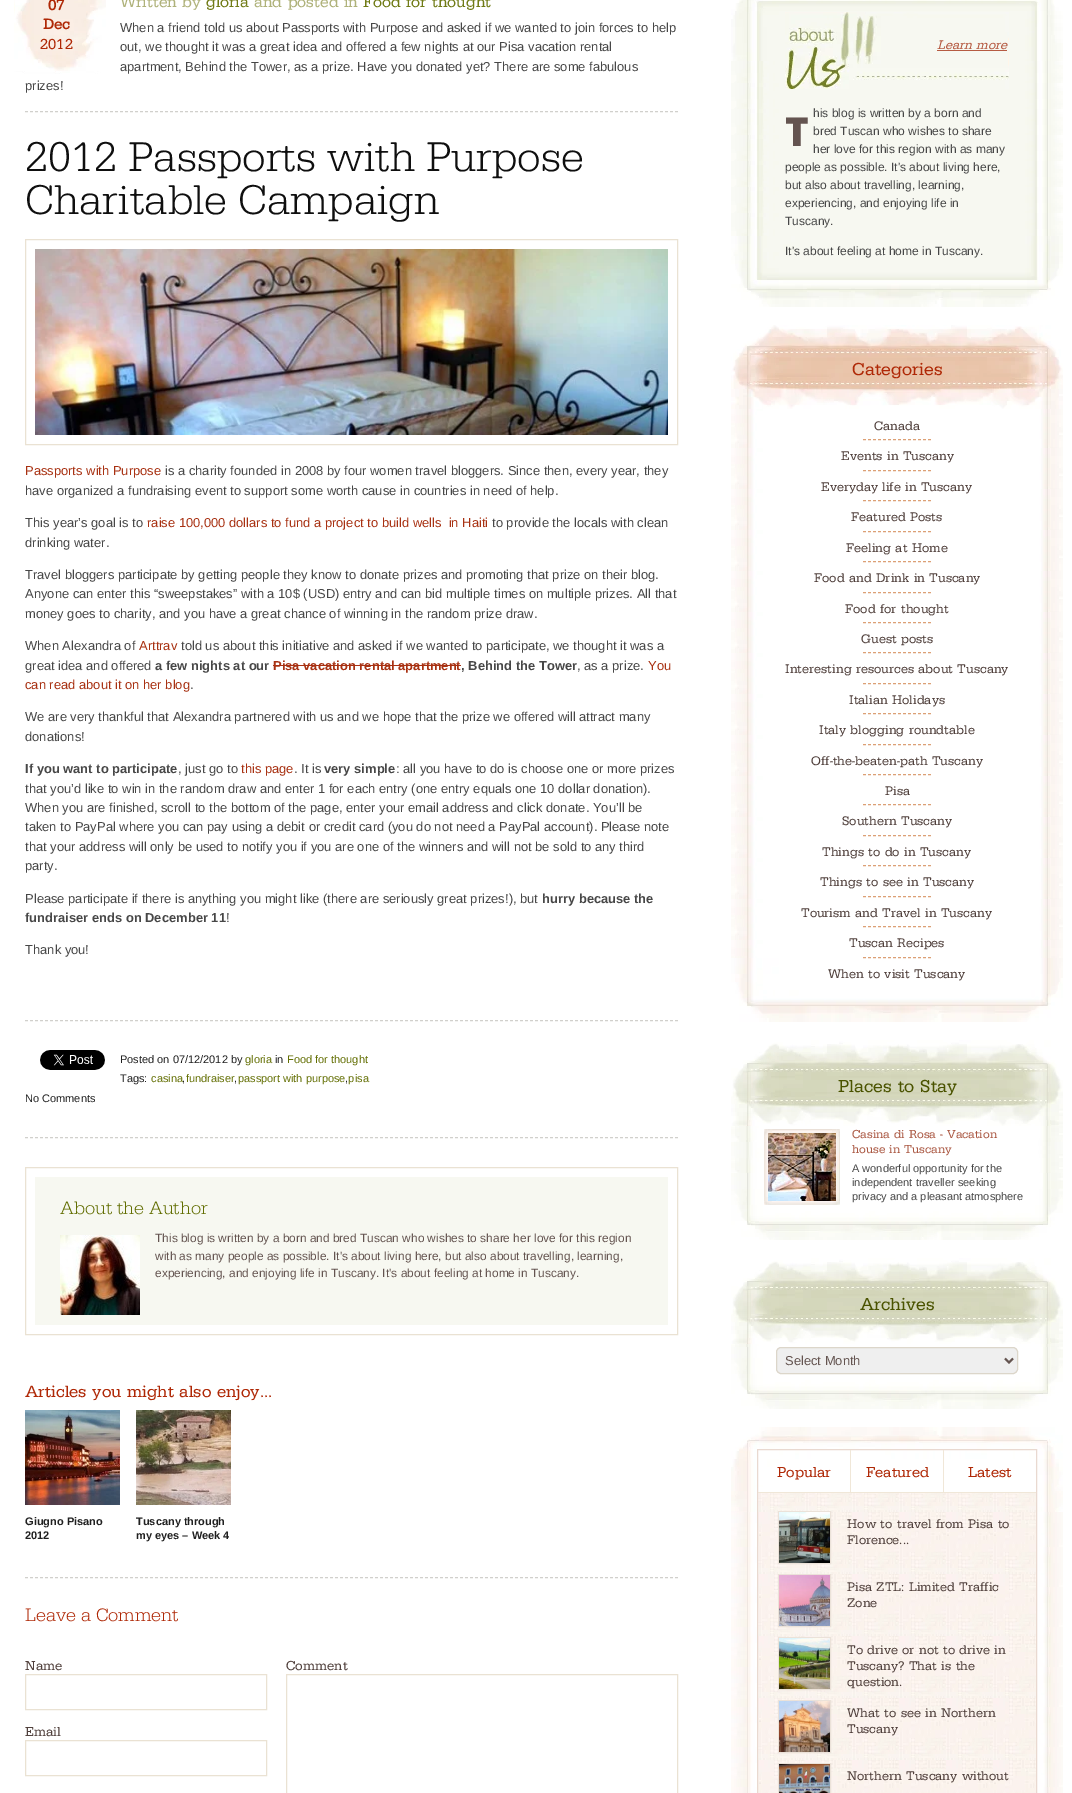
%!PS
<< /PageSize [1072 1793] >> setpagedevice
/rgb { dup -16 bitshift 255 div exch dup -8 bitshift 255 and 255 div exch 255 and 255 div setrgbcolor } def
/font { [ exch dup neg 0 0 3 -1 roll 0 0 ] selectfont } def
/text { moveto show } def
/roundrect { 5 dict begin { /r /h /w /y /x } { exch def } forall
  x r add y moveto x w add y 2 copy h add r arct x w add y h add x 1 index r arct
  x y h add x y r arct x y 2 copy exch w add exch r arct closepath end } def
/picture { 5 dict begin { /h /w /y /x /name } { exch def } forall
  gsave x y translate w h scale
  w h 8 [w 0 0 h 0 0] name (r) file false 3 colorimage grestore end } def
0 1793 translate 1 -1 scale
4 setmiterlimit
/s1 { /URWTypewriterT-Bold 15 font 16#AF2806 rgb } def
/s2 { /URWTypewriterT-Regular 15 font 16#AF2806 rgb } def
/s3 { /URWTypewriterT-Regular 16 font 16#AFB27A rgb } def
/s4 { /URWTypewriterT-Regular 16 font 16#707B16 rgb } def
/s5 { /LiberationSans-Regular 12.95 font 16#474747 rgb } def
/s6 { /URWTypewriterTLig-Regular 43.2 font 16#0F0F0F rgb } def
/s7 { /LiberationSans-Regular 12.95 font 16#A83112 rgb } def
/s8 { /LiberationSans-Bold 12.95 font 16#474747 rgb } def
/s9 { /LiberationSans-Bold 12.95 font 16#A83112 rgb } def
/s10 { /LiberationSans-Regular 11 font 16#202020 rgb } def
/s11 { /LiberationSans-Regular 11 font 16#636F03 rgb } def
/s12 { /URWTypewriterTLig-Regular 18.75 font 16#636F03 rgb } def
/s13 { /LiberationSans-Regular 11.9 font 16#645450 rgb } def
/s14 { /URWTypewriterT-Regular 17 font 16#AF2806 rgb } def
/s15 { /LiberationSans-Bold 11 font 16#202020 rgb } def
/s16 { /URWTypewriterTLig-Regular 18.75 font 16#AF2806 rgb } def
/s17 { /URWTypewriterT-Regular 13.5 font 16#50403C rgb } def
/s18 { /URWTypewriterT-Italic 12.95 font 16#B65B42 rgb } def
/s19 { /LiberationSans-Regular 12 font 16#474747 rgb } def
/s20 { /NotoSans-Black 40 font 16#645450 rgb } def
/s21 { /URWTypewriterT-Regular 18 font 16#AF2806 rgb } def
/s22 { /URWTypewriterT-Regular 12.95 font 16#50403C rgb } def
/s23 { /URWTypewriterT-Regular 18 font 16#4A5300 rgb } def
/s24 { /URWTypewriterT-Regular 12 font 16#AB5944 rgb } def
/s25 { /LiberationSans-Regular 11 font 16#474747 rgb } def
/s26 { /LiberationSans-Regular 12.95 font 16#645450 rgb } def
16#FFFFFF rgb
0 0 1072 1793 rectfill
16#D1D0CC rgb
[3 2] 0 setdash
25 111.5 moveto 678 111.5 lineto stroke
(pic1.raw) 14 0 92 74 picture
s1
(07) 48 10 text
(Dec) 43 29 text
s2
(2012) 40 49 text
s3
(Written by) 120 7 text
s4
(gloria) 206 7 text
s3
(and posted in) 254 7 text
s4
(Food for thought) 363 7 text
s5
(When a friend told us about Passports with Purpose and asked if we wanted to join forces to help) 120 32 text
(out, we thought it was a great idea and offered a few nights at our Pisa vacation rental) 120 51 text
(apartment, Behind the Tower, as a prize. Have you donated yet? There are some fabulous) 120 71 text
(prizes!) 25 90 text
s6
(2012 Passports with Purpose) 25 171 text
(Charitable Campaign) 25 214 text
16#EAE2D3 rgb
[] 0 setdash
25.5 239.5 652 205 rectstroke
(pic2.raw) 35 249 633 186 picture
s7
(Passports with Purpose) 25 475 text
s5
(is a charity founded in 2008 by four women travel bloggers. Since then, every year, they) 165 475 text
(have organized a fundraising event to support some worth cause in countries in need of help.) 25 495 text
(This year’s goal is to) 25 527 text
s7
(raise 100,000 dollars to fund a project to build wells  in Haiti) 147 527 text
s5
(to provide the locals with clean) 492 527 text
(drinking water.) 25 547 text
(Travel bloggers participate by getting people they know to donate prizes and promoting that prize on their blog.) 25 579 text
(Anyone can enter this “sweepstakes” with a 10$ \(USD\) entry and can bid multiple times on multiple prizes. All that) 25 598 text
(money goes to charity, and you have a great chance of winning in the random prize draw.) 25 618 text
(When Alexandra of) 25 650 text
s7
(Arttrav) 139 650 text
s5
(told us about this initiative and asked if we wanted to participate, we thought it was a) 181 650 text
(great idea and offered) 25 670 text
s8
(a few nights at our) 155 670 text
s9
(Pisa vacation rental apartment) 273 670 text
273 665 188 1 rectfill
s8
(, Behind the Tower) 461 670 text
s5
(, as a prize.) 577 670 text
s7
(You) 648 670 text
(can read about it on her blog) 25 689 text
s5
(.) 190 689 text
(We are very thankful that Alexandra partnered with us and we hope that the prize we offered will attract many) 25 721 text
(donations!) 25 741 text
s8
(If you want to participate) 25 773 text
s5
(, just go to) 178 773 text
s7
(this page) 241 773 text
s5
(. It is) 294 773 text
s8
(very simple) 324 773 text
s5
(: all you have to do is choose one or more prizes) 396 773 text
(that you’d like to win in the random draw and enter 1 for each entry \(one entry equals one 10 dollar donation\).) 25 793 text
(When you are finished, scroll to the bottom of the page, enter your email address and click donate. You’ll be) 25 812 text
(taken to PayPal where you can pay using a debit or credit card \(you do not need a PayPal account\). Please note) 25 831 text
(that your address will only be used to notify you if you are one of the winners and will not be sold to any third) 25 851 text
(party.) 25 870 text
(Please participate if there is anything you might like \(there are seriously great prizes!\), but) 25 903 text
s8
(hurry because the) 542 903 text
(fundraiser ends on December 11) 25 922 text
s5
(!) 226 922 text
(Thank you!) 25 954 text
16#D1D0CC rgb
[3 2] 0 setdash
25 1020.5 moveto 678 1020.5 lineto stroke
25 1137.5 moveto 678 1137.5 lineto stroke
(pic3.raw) 40 1050 65 20 picture
s10
(Posted on 07/12/2012 by) 120 1063 text
s11
(gloria) 245 1063 text
s10
(in) 275 1063 text
s11
(Food for thought) 287 1063 text
s10
(Tags:) 120 1082 text
s11
(casina fundraiser passport with purpose pisa) 151 1082 text
s10
(,) 182 1082 text
(,) 234 1082 text
(,) 345 1082 text
(No Comments) 25 1102 text
16#F7F8F1 rgb
35 1177 633 148 rectfill
16#EAE2D3 rgb
[] 0 setdash
25.5 1167.5 652 167 rectstroke
s12
(About the Author) 60 1214 text
(pic4.raw) 60 1235 80 80 picture
s13
(This blog is written by a born and bred Tuscan who wishes to share her love for this region) 155 1242 text
(with as many people as possible. It's about living here, but also about travelling, learning,) 155 1260 text
(experiencing, and enjoying life in Tuscany. It's about feeling at home in Tuscany.) 155 1277 text
s14
(Articles you might also enjoy...) 25 1397 text
(pic5.raw) 25 1410 95 95 picture
s15
(Giugno Pisano) 25 1525 text
(2012) 25 1539 text
(pic6.raw) 136 1410 95 95 picture
(Tuscany through) 136 1525 text
(my eyes – Week 4) 136 1539 text
16#D1D0CC rgb
[3 2] 0 setdash
25 1577.5 moveto 678 1577.5 lineto stroke
s16
(Leave a Comment) 25 1621 text
s17
(Name) 25 1670 text
16#EAE2D3 rgb
[] 0 setdash
25.5 1674.5 241 35 rectstroke
s17
(Email) 25 1736 text
16#EAE2D3 rgb
25.5 1740.5 241 35 rectstroke
s17
(Comment) 286 1670 text
16#EAE2D3 rgb
286.5 1674.5 391 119 rectstroke
(pic7.raw) 731 61 332 175 picture
(pic8.raw) 731 0 332 61 picture
(pic9.raw) 785 12 224 77 picture
s18
(Learn more) 937 49 text
937 50 70 1 rectfill
(pic10.raw) 731 236 332 71 picture
s19
(his blog is written by a born and) 813 117 text
s20
(T) 785 146 text
s19
(bred Tuscan who wishes to share) 813 135 text
(her love for this region with as many) 813 153 text
(people as possible. It's about living here,) 785 171 text
(but also about travelling, learning,) 785 189 text
(experiencing, and enjoying life in) 785 207 text
(Tuscany.) 785 225 text
(It's about feeling at home in Tuscany.) 785 255 text
(pic11.raw) 731 409 332 549 picture
(pic12.raw) 731 325 332 84 picture
s21
(Categories) 852 375 text
(pic13.raw) 731 958 332 64 picture
s22
(Canada) 874 430 text
16#DCA075 rgb
[3 2] 0 setdash
863 439.5 moveto 931 439.5 lineto stroke
s22
(Events in Tuscany) 841 460 text
16#DCA075 rgb
863 470.5 moveto 931 470.5 lineto stroke
s22
(Everyday life in Tuscany) 821 491 text
16#DCA075 rgb
863 500.5 moveto 931 500.5 lineto stroke
s22
(Featured Posts) 851 521 text
16#DCA075 rgb
863 531.5 moveto 931 531.5 lineto stroke
s22
(Feeling at Home) 846 552 text
16#DCA075 rgb
863 561.5 moveto 931 561.5 lineto stroke
s22
(Food and Drink in Tuscany) 814 582 text
16#DCA075 rgb
863 592.5 moveto 931 592.5 lineto stroke
s22
(Food for thought) 845 613 text
16#DCA075 rgb
863 622.5 moveto 931 622.5 lineto stroke
s22
(Guest posts) 861 643 text
16#DCA075 rgb
863 652.5 moveto 931 652.5 lineto stroke
s22
(Interesting resources about Tuscany) 785 673 text
16#DCA075 rgb
863 683.5 moveto 931 683.5 lineto stroke
s22
(Italian Holidays) 849 704 text
16#DCA075 rgb
863 713.5 moveto 931 713.5 lineto stroke
s22
(Italy blogging roundtable) 819 734 text
16#DCA075 rgb
863 744.5 moveto 931 744.5 lineto stroke
s22
(Off-the-beaten-path Tuscany) 811 765 text
16#DCA075 rgb
863 774.5 moveto 931 774.5 lineto stroke
s22
(Pisa) 885 795 text
16#DCA075 rgb
863 804.5 moveto 931 804.5 lineto stroke
s22
(Southern Tuscany) 842 825 text
16#DCA075 rgb
863 835.5 moveto 931 835.5 lineto stroke
s22
(Things to do in Tuscany) 822 856 text
16#DCA075 rgb
863 865.5 moveto 931 865.5 lineto stroke
s22
(Things to see in Tuscany) 820 886 text
16#DCA075 rgb
863 896.5 moveto 931 896.5 lineto stroke
s22
(Tourism and Travel in Tuscany) 801 917 text
16#DCA075 rgb
863 926.5 moveto 931 926.5 lineto stroke
s22
(Tuscan Recipes) 849 947 text
16#DCA075 rgb
863 957.5 moveto 931 957.5 lineto stroke
s22
(When to visit Tuscany) 828 978 text
(pic14.raw) 731 1126 332 47 picture
(pic15.raw) 731 1040 332 86 picture
s23
(Places to Stay) 838 1092 text
(pic16.raw) 731 1173 332 67 picture
(pic17.raw) 764 1129 76 76 picture
(pic18.raw) 768 1133 68 68 picture
s24
(Casina di Rosa - Vacation) 852 1138 text
(house in Tuscany) 852 1153 text
s25
(A wonderful opportunity for the) 852 1172 text
(independent traveller seeking) 852 1186 text
(privacy and a pleasant atmosphere) 852 1200 text
(pic19.raw) 731 1344 332 3 picture
(pic15.raw) 731 1258 332 86 picture
s23
(Archives) 860 1310 text
(pic20.raw) 731 1347 332 62 picture
16#EFEFEF rgb
776.5 1347.5 241 26 4.5 roundrect gsave fill grestore
16#DCD6CA rgb
[] 0 setdash
stroke
16#645450 rgb
2 setlinewidth
1005 1358.5 moveto 1009 1362.5 lineto 1013 1358.5 lineto stroke
s26
(Select Month) 785 1365 text
(pic21.raw) 731 1512 332 281 picture
(pic22.raw) 731 1427 332 85 picture
(pic23.raw) 758 1493 278 300 picture
16#E9D9D0 rgb
1 setlinewidth
757.5 1449.5 279 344 rectstroke
16#F0E7D8 rgb
758 1492 92 1 rectfill
s2
(Popular) 777 1477 text
16#F0E7D8 rgb
943 1450 1 43 rectfill
850 1492 186 1 rectfill
850 1450 1 43 rectfill
s2
(Featured) 866 1477 text
(Latest) 968 1477 text
16#EBE2D9 rgb
778.5 1511.5 52 52 rectstroke
(pic24.raw) 779 1512 51 51 picture
s22
(How to travel from Pisa to) 847 1528 text
(Florence...) 847 1544 text
16#EBE2D9 rgb
778.5 1574.5 52 52 rectstroke
(pic25.raw) 779 1575 51 51 picture
s22
(Pisa ZTL: Limited Traffic) 847 1591 text
(Zone) 847 1607 text
16#EBE2D9 rgb
778.5 1637.5 52 52 rectstroke
(pic26.raw) 779 1638 51 51 picture
s22
(To drive or not to drive in) 847 1654 text
(Tuscany? That is the) 847 1670 text
(question.) 847 1686 text
16#EBE2D9 rgb
778.5 1700.5 52 52 rectstroke
(pic27.raw) 779 1701 51 51 picture
s22
(What to see in Northern) 847 1717 text
(Tuscany) 847 1733 text
16#EBE2D9 rgb
778.5 1763.5 52 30 rectstroke
(pic28.raw) 779 1764 51 29 picture
s22
(Northern Tuscany without) 847 1780 text
showpage
